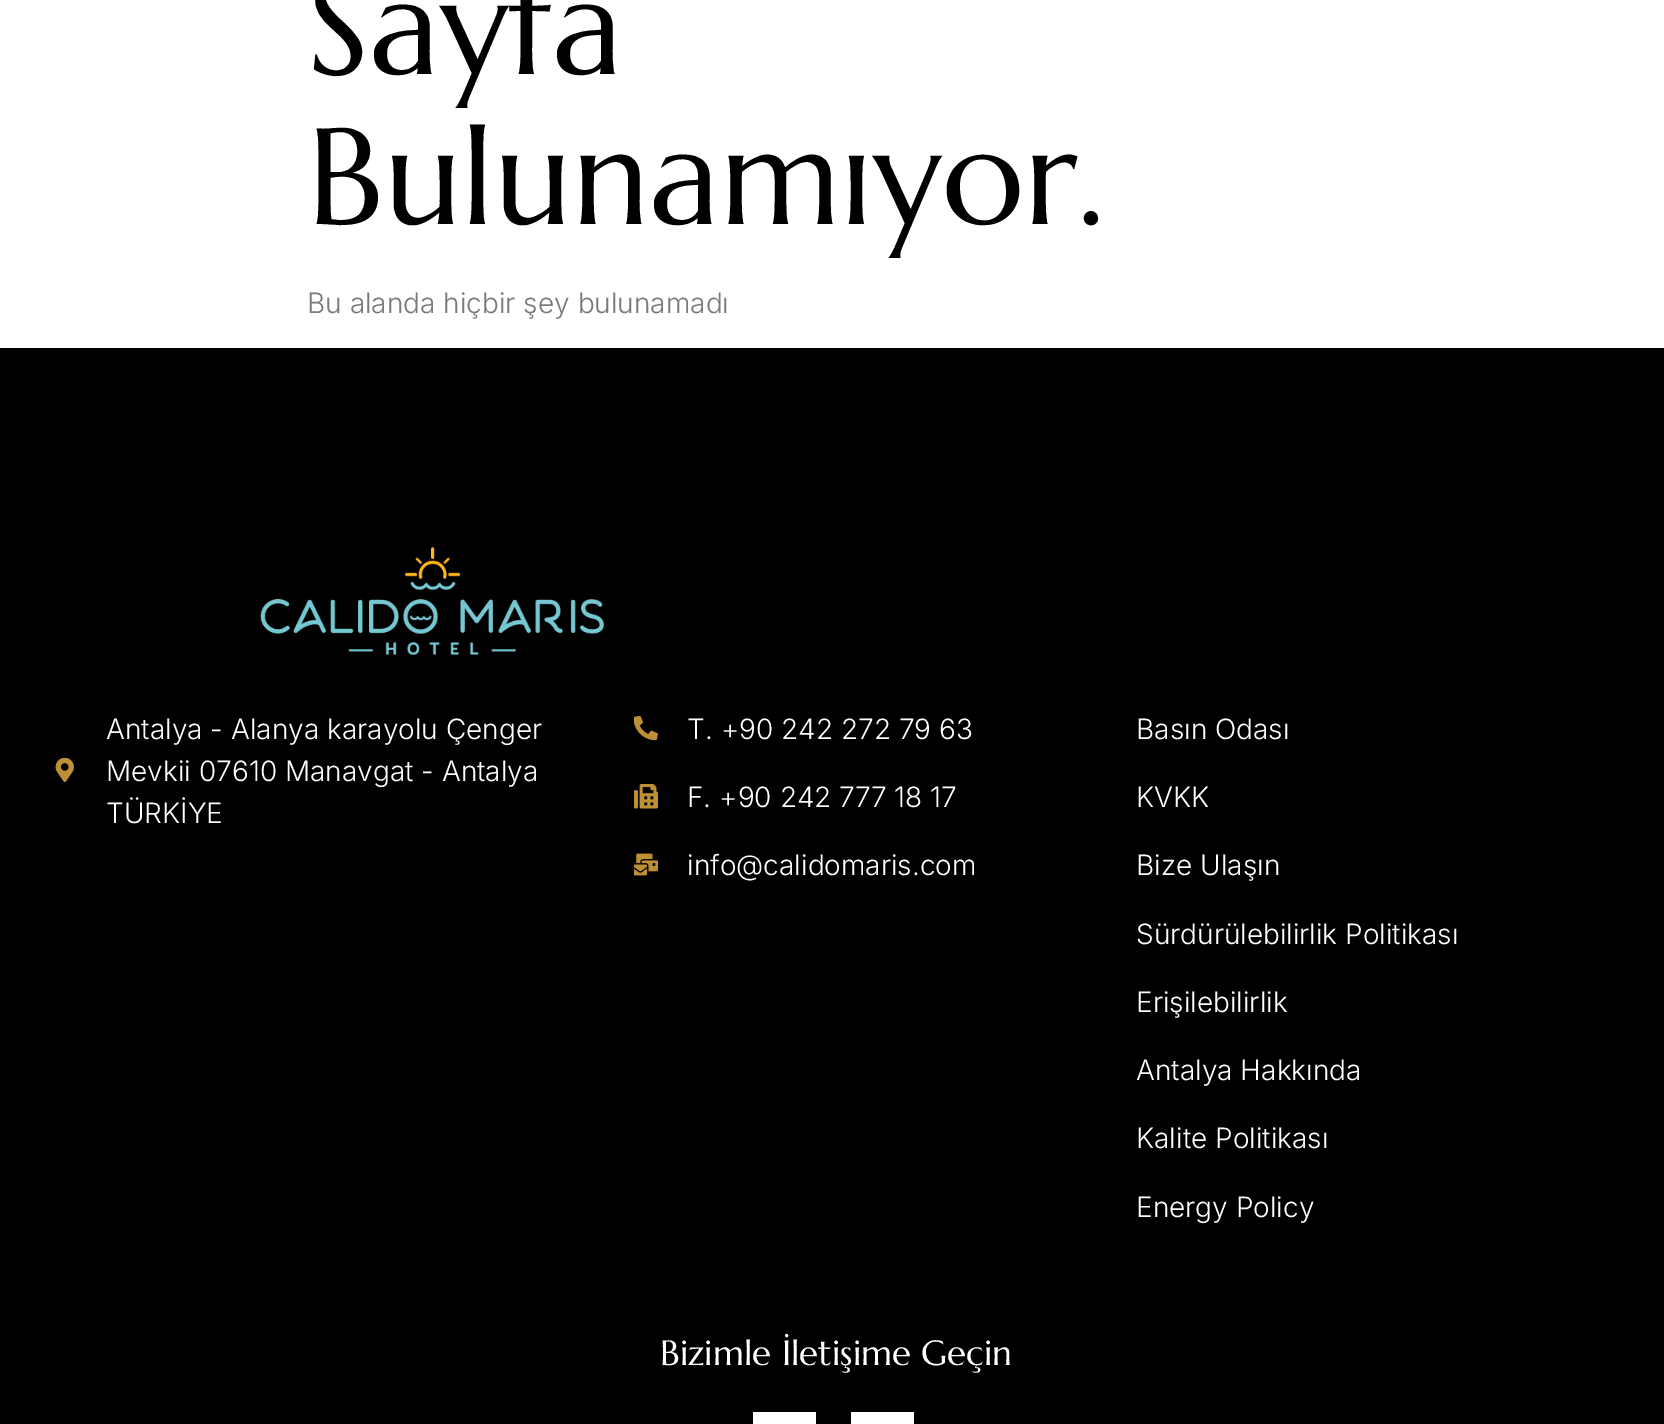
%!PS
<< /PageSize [1664 1424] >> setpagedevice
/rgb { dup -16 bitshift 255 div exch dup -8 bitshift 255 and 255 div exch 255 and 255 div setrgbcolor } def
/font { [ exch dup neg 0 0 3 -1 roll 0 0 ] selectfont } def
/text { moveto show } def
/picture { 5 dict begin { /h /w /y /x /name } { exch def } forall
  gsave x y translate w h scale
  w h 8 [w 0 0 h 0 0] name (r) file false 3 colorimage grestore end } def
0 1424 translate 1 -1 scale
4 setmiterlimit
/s1 { /Marcellus-Regular 136.5 font 16#000000 rgb } def
/s2 { /Inter-Light 28 font 16#7A7A7A rgb } def
/s3 { /Inter-Light 28 font 16#FFFFFF rgb } def
/s4 { /Marcellus-Regular 35 font 16#FFFFFF rgb } def
16#FFFFFF rgb
0 0 1664 1424 rectfill
s1
(Sayfa) 307 74 text
(Bulunamıyor.) 307 224 text
s2
(Bu alanda hiçbir şey bulunamadı) 307 313 text
16#000000 rgb
0 348 1664 1076 rectfill
(pic1.raw) 260 547 344 108 picture
(pic2.raw) 55 758 19 24 picture
s3
(Antalya - Alanya karayolu Çenger) 106 739 text
(Mevkii 07610 Manavgat - Antalya) 106 781 text
(TÜRKİYE) 106 823 text
(pic3.raw) 634 716 24 24 picture
(T. +90 242 272 79 63) 687 739 text
(pic4.raw) 634 784 24 25 picture
(F. +90 242 777 18 17) 687 807 text
(pic5.raw) 634 853 24 23 picture
(info@calidomaris.com) 687 875 text
(Basın Odası) 1136 739 text
(KVKK) 1136 807 text
(Bize Ulaşın) 1136 875 text
(Sürdürülebilirlik Politikası) 1136 944 text
(Erişilebilirlik) 1136 1012 text
(Antalya Hakkında) 1136 1080 text
(Kalite Politikası) 1136 1148 text
(Energy Policy) 1136 1217 text
s4
(Bizimle İletişime Geçin) 660 1365 text
753 1412 63 12 rectfill
851 1412 63 12 rectfill
showpage
